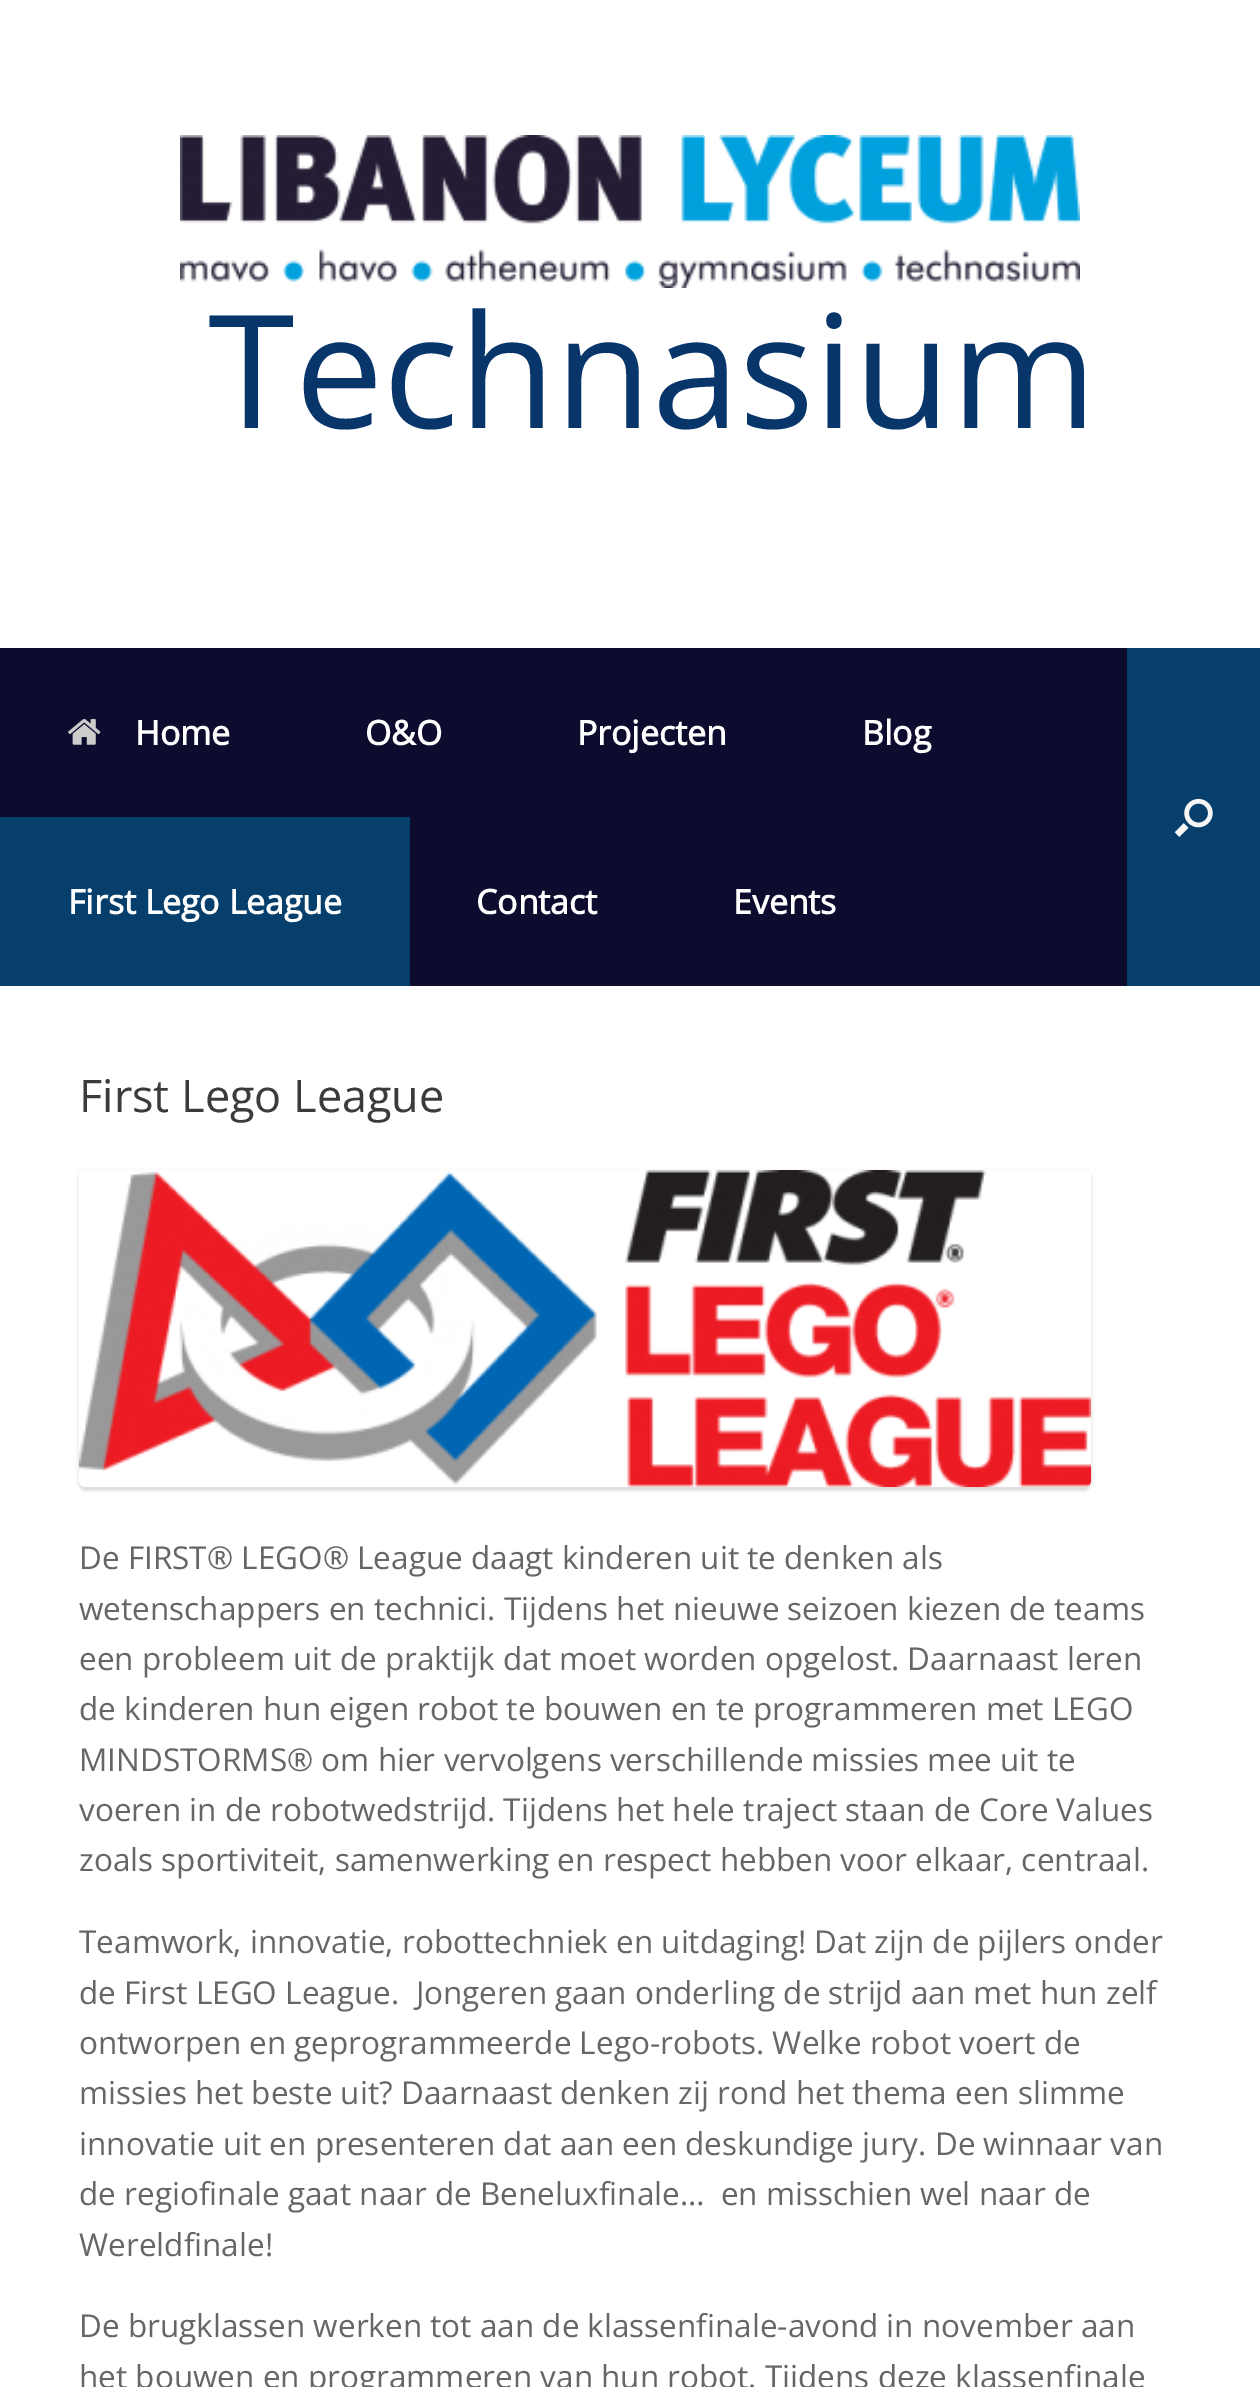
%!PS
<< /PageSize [1260 2387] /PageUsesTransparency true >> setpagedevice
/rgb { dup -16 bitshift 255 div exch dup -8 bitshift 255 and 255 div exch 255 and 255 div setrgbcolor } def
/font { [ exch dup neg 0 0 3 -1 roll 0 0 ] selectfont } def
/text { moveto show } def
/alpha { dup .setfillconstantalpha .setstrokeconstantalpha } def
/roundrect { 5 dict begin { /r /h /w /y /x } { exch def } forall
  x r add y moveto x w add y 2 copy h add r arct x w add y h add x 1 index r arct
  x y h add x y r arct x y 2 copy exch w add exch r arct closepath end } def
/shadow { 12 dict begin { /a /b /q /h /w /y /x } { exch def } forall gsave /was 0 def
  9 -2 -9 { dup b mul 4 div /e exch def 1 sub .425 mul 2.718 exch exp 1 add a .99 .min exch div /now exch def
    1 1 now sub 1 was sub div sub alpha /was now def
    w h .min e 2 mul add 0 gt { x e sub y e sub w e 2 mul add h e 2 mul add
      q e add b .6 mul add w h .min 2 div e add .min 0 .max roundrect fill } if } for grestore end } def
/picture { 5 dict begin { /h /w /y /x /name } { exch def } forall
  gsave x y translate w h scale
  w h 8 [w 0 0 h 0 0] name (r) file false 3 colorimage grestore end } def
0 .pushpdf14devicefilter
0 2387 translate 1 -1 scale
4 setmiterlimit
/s1 { /OpenSans-Regular 157.5 font 16#08366B rgb } def
/s2 { /OpenSans-Bold 33.75 font 16#FFFFFF rgb } def
/s3 { /OpenSans-Regular 45 font 16#3B3B3B rgb } def
/s4 { /OpenSans-Regular 31.5 font 16#666666 rgb } def
16#FFFFFF rgb
0 0 1260 2387 rectfill
(pic1.raw) 180 135 900 153 picture
s1
(Technasium) 208 428 text
16#0D0C2E rgb
0 648 1127 338 rectfill
(pic2.raw) 68 719 33 26 picture
s2
(Home) 135 745 text
(O&O) 365 745 text
(Projecten) 577 745 text
(Blog) 862 745 text
16#063F6B rgb
0 817 410 169 rectfill
s2
(First Lego League) 68 914 text
(Contact) 476 914 text
(Events) 733 914 text
16#063F6B rgb
1127 648 133 338 rectfill
(pic3.raw) 1174 798 39 39 picture
s3
(First Lego League) 79 1112 text
gsave
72 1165 moveto 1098 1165 lineto 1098 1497 lineto 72 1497 lineto closepath 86 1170 moveto 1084 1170 lineto 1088 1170 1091 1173 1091 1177 curveto 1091 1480 lineto 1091 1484 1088 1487 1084 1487 curveto 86 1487 lineto 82 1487 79 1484 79 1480 curveto 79 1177 lineto 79 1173 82 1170 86 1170 curveto closepath eoclip newpath
16#000000 rgb
79 1172 1012 318 7 2 0.18 shadow
grestore
(pic4.raw) 78 1170 1014 318 picture
s4
(De FIRST® LEGO® League daagt kinderen uit te denken als) 79 1569 text
(wetenschappers en technici. Tijdens het nieuwe seizoen kiezen de teams) 79 1620 text
(een probleem uit de praktijk dat moet worden opgelost. Daarnaast leren) 79 1670 text
(de kinderen hun eigen robot te bouwen en te programmeren met LEGO) 79 1720 text
(MINDSTORMS® om hier vervolgens verschillende missies mee uit te) 79 1771 text
(voeren in de robotwedstrijd. Tijdens het hele traject staan de Core Values) 79 1821 text
(zoals sportiviteit, samenwerking en respect hebben voor elkaar, centraal.) 79 1871 text
(Teamwork, innovatie, robottechniek en uitdaging! Dat zijn de pijlers onder) 79 1953 text
(de First LEGO League.  Jongeren gaan onderling de strijd aan met hun zelf) 79 2004 text
(ontworpen en geprogrammeerde Lego-robots. Welke robot voert de) 79 2054 text
(missies het beste uit? Daarnaast denken zij rond het thema een slimme) 79 2104 text
(innovatie uit en presenteren dat aan een deskundige jury. De winnaar van) 79 2155 text
(de regiofinale gaat naar de Beneluxfinale…  en misschien wel naar de) 79 2205 text
(Wereldfinale!) 79 2256 text
(De brugklassen werken tot aan de klassenfinale-avond in november aan) 79 2337 text
(het bouwen en programmeren van hun robot. Tijdens deze klassenfinale) 79 2388 text
.poppdf14devicefilter showpage
